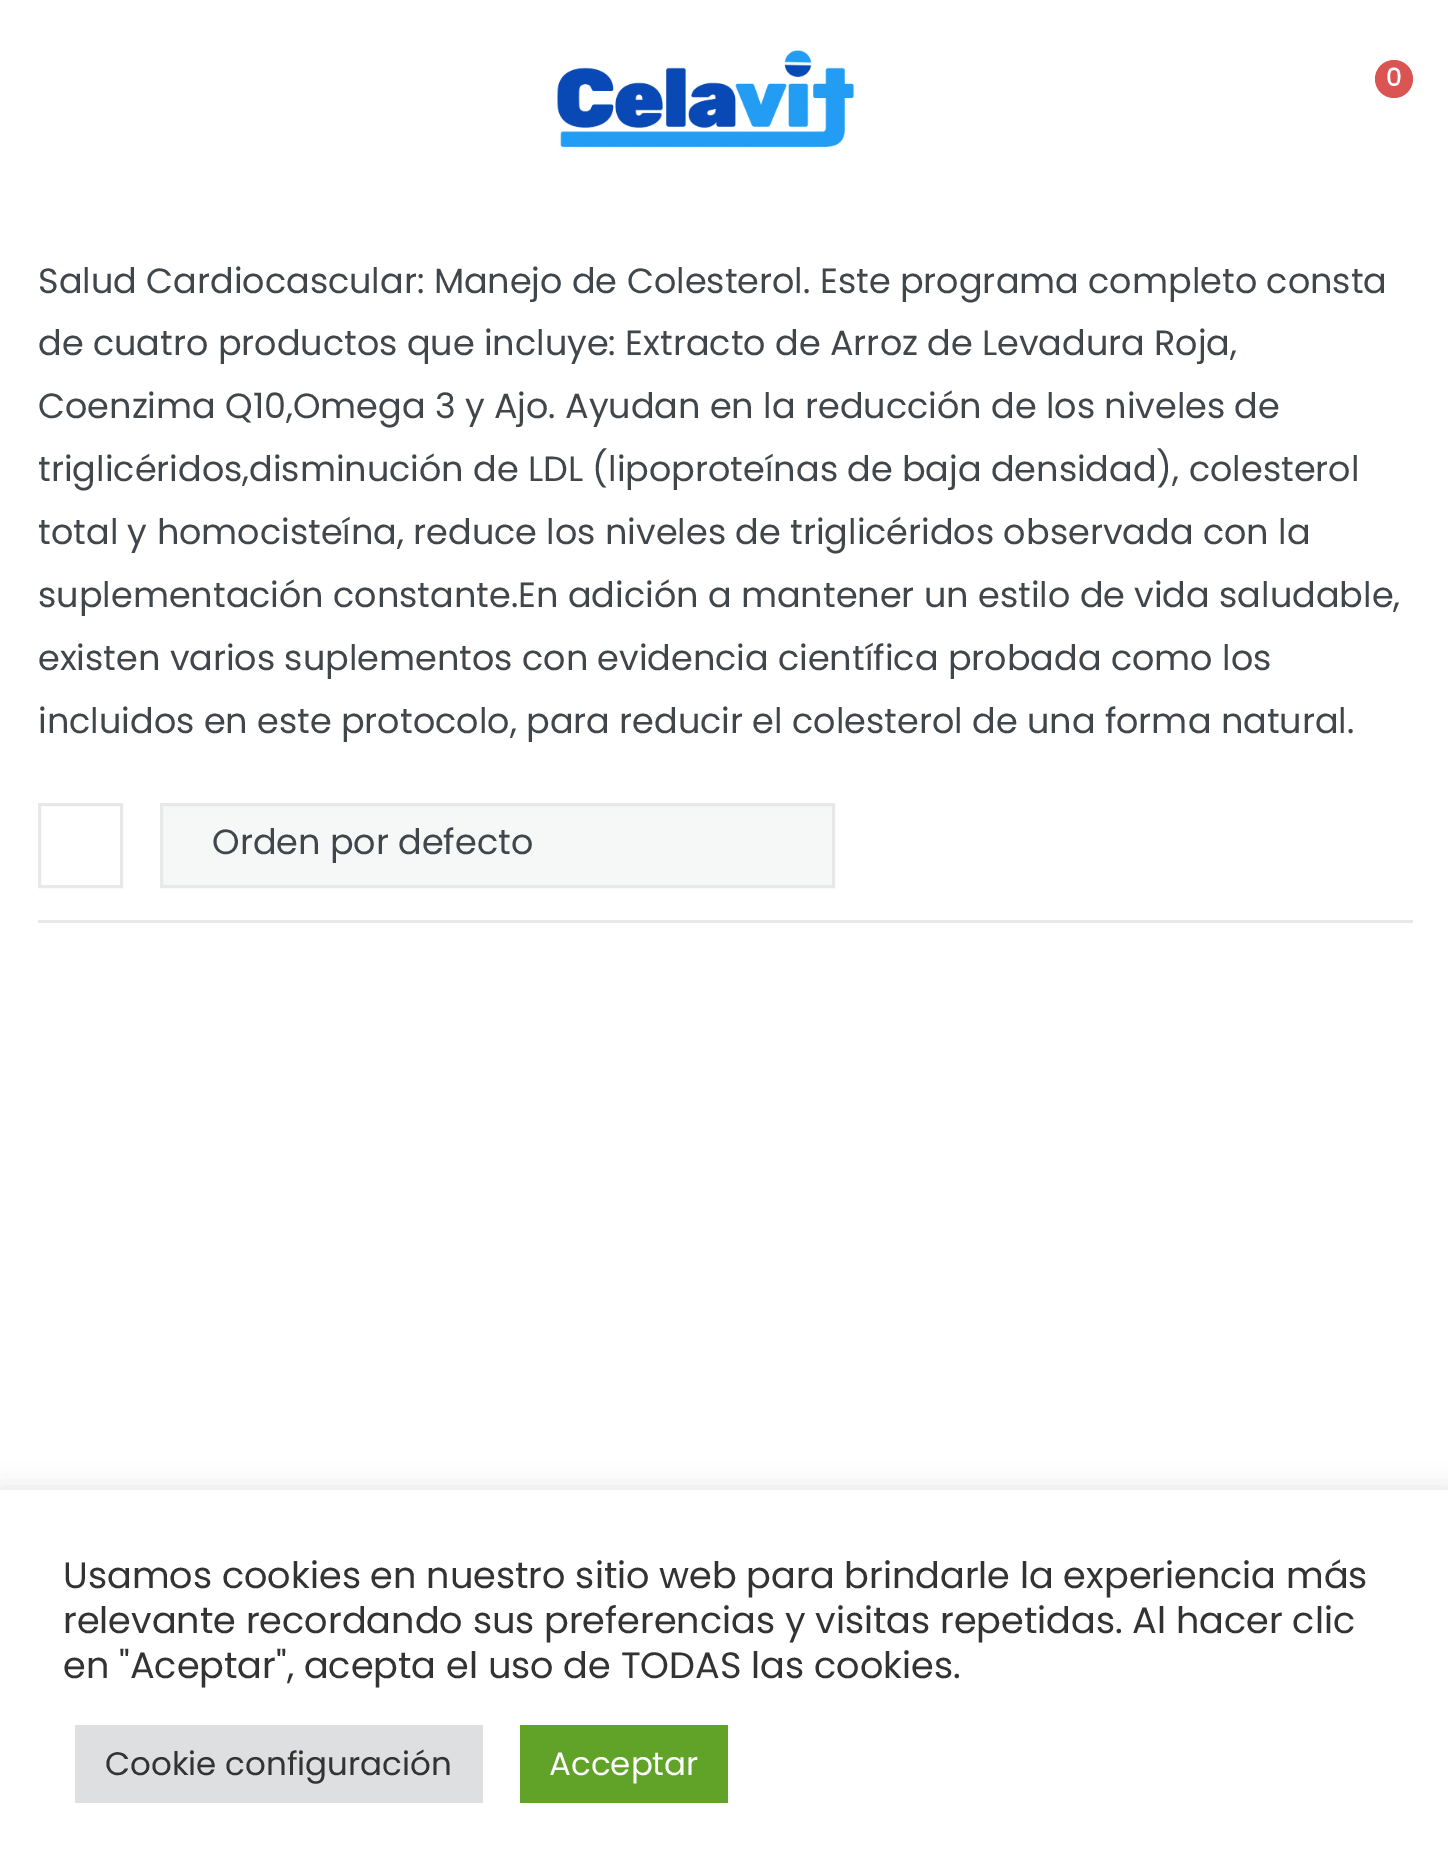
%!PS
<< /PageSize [1448 1876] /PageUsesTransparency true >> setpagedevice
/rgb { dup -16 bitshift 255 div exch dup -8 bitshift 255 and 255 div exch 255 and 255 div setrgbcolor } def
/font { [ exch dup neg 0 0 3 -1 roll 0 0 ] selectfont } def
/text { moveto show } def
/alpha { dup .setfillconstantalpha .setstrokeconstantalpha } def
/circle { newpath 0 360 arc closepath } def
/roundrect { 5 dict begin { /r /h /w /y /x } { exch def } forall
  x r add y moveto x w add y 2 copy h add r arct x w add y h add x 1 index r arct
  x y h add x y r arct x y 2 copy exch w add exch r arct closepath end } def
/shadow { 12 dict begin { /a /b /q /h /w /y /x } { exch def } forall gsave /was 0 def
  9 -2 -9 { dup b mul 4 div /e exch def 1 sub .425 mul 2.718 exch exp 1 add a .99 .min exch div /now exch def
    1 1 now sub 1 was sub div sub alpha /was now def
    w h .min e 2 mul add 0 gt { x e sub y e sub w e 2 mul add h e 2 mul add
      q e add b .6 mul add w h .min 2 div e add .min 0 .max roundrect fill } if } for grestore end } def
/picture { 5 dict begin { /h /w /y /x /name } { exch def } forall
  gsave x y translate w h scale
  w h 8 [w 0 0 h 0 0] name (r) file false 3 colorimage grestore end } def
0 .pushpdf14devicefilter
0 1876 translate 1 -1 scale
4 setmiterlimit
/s1 { /Poppins-Medium 25 font 16#FFFFFF rgb } def
/s2 { /Poppins-Regular 35 font 16#41464B rgb } def
/s3 { /Poppins-Regular 36.65 font 16#333333 rgb } def
/s4 { /Poppins-Regular 32.5 font 16#333333 rgb } def
/s5 { /Poppins-Regular 32.5 font 16#FFFFFF rgb } def
16#FFFFFF rgb
0 0 1448 1876 rectfill
(pic1.raw) 557 50 297 97 picture
16#DA5454 rgb
1394 79 19 circle fill
s1
(0) 1386 86 text
s2
(Salud Cardiocascular: Manejo de Colesterol. Este programa completo consta) 38 293 text
(de cuatro productos que incluye: Extracto de Arroz de Levadura Roja,) 38 355 text
(Coenzima Q10,Omega 3 y Ajo. Ayudan en la reducción de los niveles de) 38 418 text
(triglicéridos,disminución de LDL \(lipoproteínas de baja densidad\), colesterol) 38 481 text
(total y homocisteína, reduce los niveles de triglicéridos observada con la) 38 544 text
(suplementación constante.En adición a mantener un estilo de vida saludable,) 38 607 text
(existen varios suplementos con evidencia científica probada como los) 38 670 text
(incluidos en este protocolo, para reducir el colesterol de una forma natural.) 38 733 text
16#E8E8E9 rgb
38 920 1375 3 rectfill
3 setlinewidth
39.5 804.5 82 82 rectstroke
16#F6F7F7 rgb
161.5 804.5 moveto 833.5 804.5 lineto 833.5 886.5 lineto 161.5 886.5 lineto closepath gsave fill grestore
16#E8E8E9 rgb
stroke
s2
(Orden por defecto) 212 854 text
16#ACABAB rgb
0 1488 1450 387 0 12.5 0.3 shadow
16#FFFFFF rgb
0 1490 1448 386 rectfill
s3
(Usamos cookies en nuestro sitio web para brindarle la experiencia más) 63 1588 text
(relevante recordando sus preferencias y visitas repetidas. Al hacer clic) 63 1633 text
(en "Aceptar", acepta el uso de TODAS las cookies.) 63 1678 text
16#DEDFE0 rgb
75 1725 408 78 rectfill
s4
(Cookie configuración) 105 1775 text
16#61A229 rgb
520 1725 208 78 rectfill
s5
(Acceptar) 549 1775 text
.poppdf14devicefilter showpage
